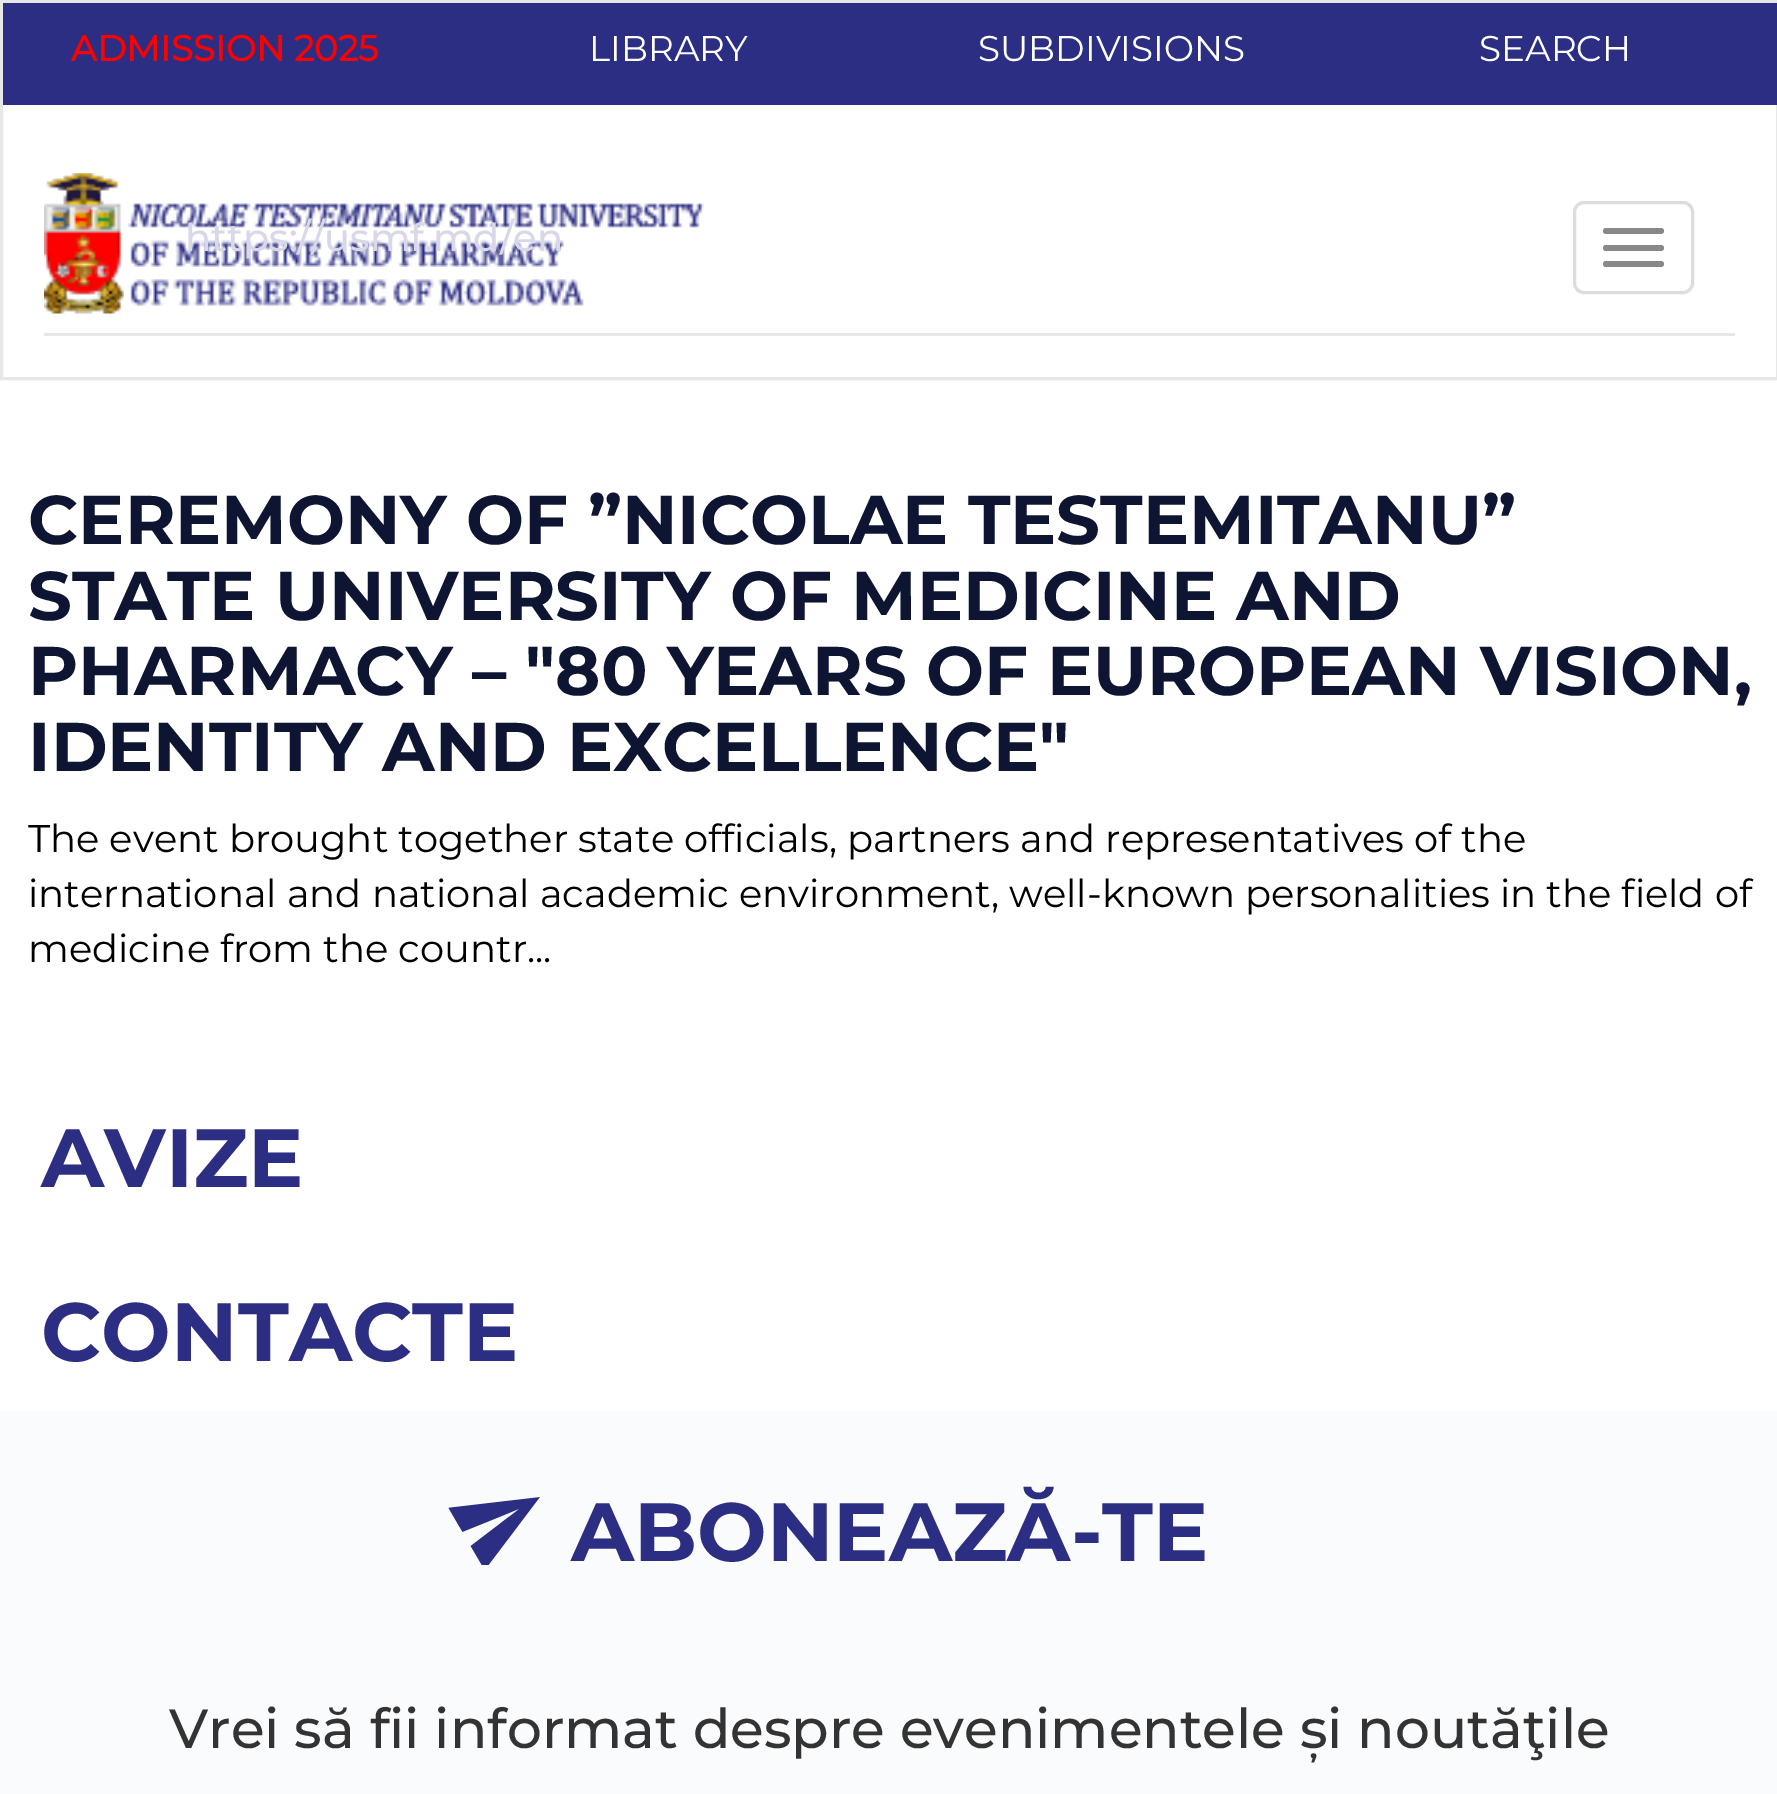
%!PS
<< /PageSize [1777 1794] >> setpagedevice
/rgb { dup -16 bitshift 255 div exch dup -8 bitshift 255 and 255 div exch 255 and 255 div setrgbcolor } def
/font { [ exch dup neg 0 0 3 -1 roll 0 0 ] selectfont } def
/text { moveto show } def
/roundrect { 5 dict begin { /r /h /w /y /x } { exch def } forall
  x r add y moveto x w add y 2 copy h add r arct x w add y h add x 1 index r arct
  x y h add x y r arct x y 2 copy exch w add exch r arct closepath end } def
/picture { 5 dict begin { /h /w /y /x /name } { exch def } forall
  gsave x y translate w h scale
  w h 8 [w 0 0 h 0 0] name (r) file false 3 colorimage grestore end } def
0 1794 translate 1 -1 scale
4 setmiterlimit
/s1 { /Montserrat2-Bold 35.75 font 16#FF0000 rgb } def
/s2 { /Montserrat-Regular 35.75 font 16#FFFFFF rgb } def
/s3 { /Montserrat-Medium 38.5 font 16#D8D8E8 rgb } def
/s4 { /Montserrat-Bold 68.75 font 16#0D1532 rgb } def
/s5 { /Montserrat-Regular 38.5 font 16#000000 rgb } def
/s6 { /Montserrat-Bold 82.5 font 16#2C2E83 rgb } def
/s7 { /Montserrat-Medium 55 font 16#333333 rgb } def
16#FFFFFF rgb
0 0 1777 1794 rectfill
16#E7E7E7 rgb
3 setlinewidth
1.5 1.5 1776 377 rectstroke
16#2C2E83 rgb
3 3 1774 102 rectfill
s1
(ADMISSION 2025) 71 61 text
s2
(LIBRARY) 589 61 text
(SUBDIVISIONS) 978 61 text
(SEARCH) 1479 61 text
(pic1.raw) 44 173 660 141 picture
s3
(https://usmf.md/en) 185 251 text
16#DDDDDD rgb
1574.5 202.5 118 90 9.5 roundrect stroke
16#888888 rgb
1603 228 61 6 3 roundrect fill
1603 245 61 6 3 roundrect fill
1603 261 61 6 3 roundrect fill
16#E7E7E7 rgb
44 333 1691 3 rectfill
s4
(CEREMONY OF ”NICOLAE TESTEMITANU”) 28 544 text
(STATE UNIVERSITY OF MEDICINE AND) 28 620 text
(PHARMACY – "80 YEARS OF EUROPEAN VISION,) 28 695 text
(IDENTITY AND EXCELLENCE") 28 771 text
gsave
28 377 1724 605 rectclip
s5
(The event brought together state officials, partners and representatives of the) 28 852 text
grestore
s5
(international and national academic environment, well-known personalities in the field of) 28 907 text
(medicine from the countr...) 28 962 text
s6
(AVIZE) 41 1187 text
(CONTACTE) 41 1361 text
16#FAFBFC rgb
0 1411 1777 383 rectfill
(pic2.raw) 448 1497 92 68 picture
s6
(ABONEAZĂ-TE) 571 1561 text
s7
(Vrei să fii informat despre evenimentele și noutăţile) 169 1748 text
showpage
